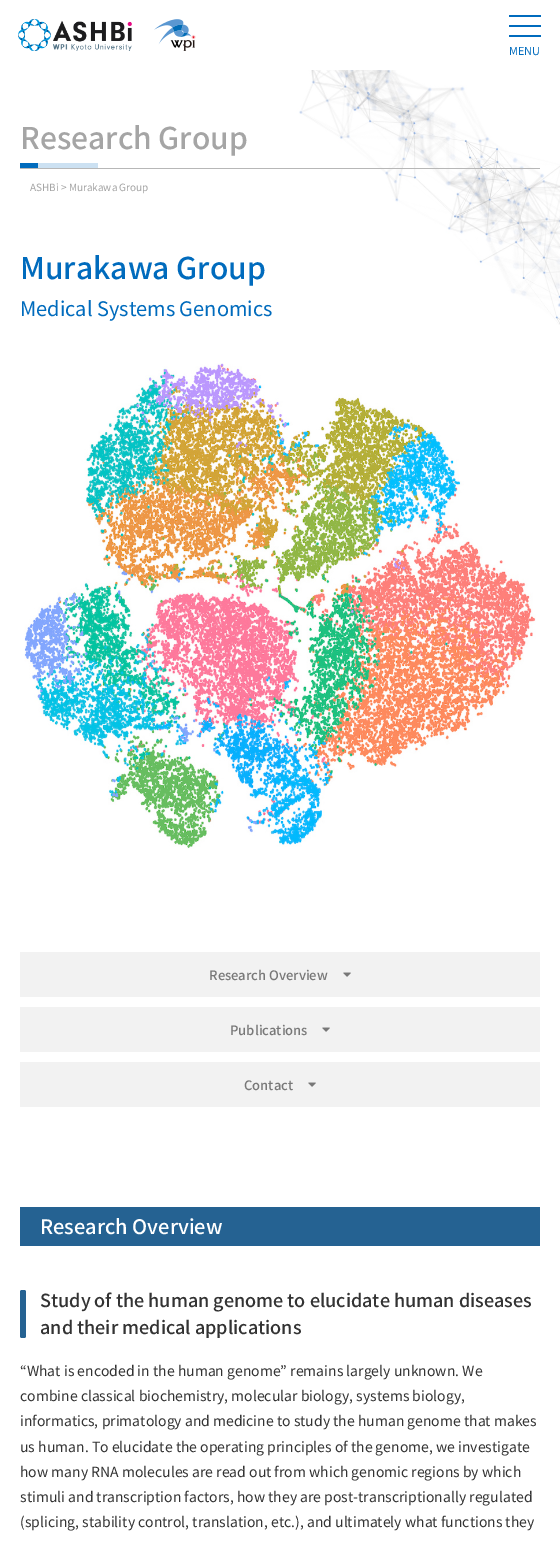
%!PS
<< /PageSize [560 1545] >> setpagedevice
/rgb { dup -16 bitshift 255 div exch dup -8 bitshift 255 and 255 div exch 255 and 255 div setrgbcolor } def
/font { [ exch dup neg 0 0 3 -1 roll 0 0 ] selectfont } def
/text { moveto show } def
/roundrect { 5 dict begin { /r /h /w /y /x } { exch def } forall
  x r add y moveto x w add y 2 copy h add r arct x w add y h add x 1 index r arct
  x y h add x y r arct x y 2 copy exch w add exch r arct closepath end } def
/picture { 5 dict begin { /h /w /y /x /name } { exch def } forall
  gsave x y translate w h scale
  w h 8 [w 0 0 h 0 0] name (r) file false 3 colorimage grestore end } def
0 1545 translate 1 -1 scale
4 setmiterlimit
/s1 { /NotoSansJP-Regular 11 font 16#006BBD rgb } def
/s2 { /NotoSansJP-Medium 30 font 16#A5A5A5 rgb } def
/s3 { /NotoSansJP-Regular 10 font 16#A5A5A5 rgb } def
/s4 { /NotoSansJP-Medium 30 font 16#006BBD rgb } def
/s5 { /NotoSansJP-Regular 20 font 16#006BBD rgb } def
/s6 { /NotoSansJP-Medium 13 font 16#787878 rgb } def
/s7 { /NotoSansJP-Medium 20 font 16#FFFFFF rgb } def
/s8 { /NotoSansJP-Medium 18 font 16#333333 rgb } def
/s9 { /NotoSansJP-Regular 14 font 16#333333 rgb } def
16#FFFFFF rgb
0 0 560 1545 rectfill
(pic1.raw) 18 19 114 32 picture
(pic2.raw) 154 19 42 32 picture
16#006BBD rgb
509 15 32 2 rectfill
509 25 32 2 rectfill
509 35 32 2 rectfill
s1
(MENU) 509 55 text
(pic3.raw) 197 70 363 255 picture
16#B7B7B7 rgb
20 168 520 1 rectfill
s2
(Research Group) 20 149 text
16#006BBD rgb
20 163 18 5 rectfill
16#CCE1F2 rgb
38 163 60 5 rectfill
s3
(ASHBi > Murakawa Group) 30 191 text
s4
(Murakawa Group) 20 279 text
s5
(Medical Systems Genomics) 20 316 text
(pic4.raw) 24 363 512 486 picture
16#F2F2F2 rgb
20 952 520 45 rectfill
s6
(Research Overview) 209 980 text
(pic5.raw) 343 972 8 5 picture
16#F2F2F2 rgb
20 1007 520 45 rectfill
s6
(Publications) 230 1035 text
(pic5.raw) 322 1027 8 5 picture
16#F2F2F2 rgb
20 1062 520 45 rectfill
s6
(Contact) 244 1090 text
(pic5.raw) 308 1082 8 5 picture
16#256292 rgb
20 1207 520 39 rectfill
s7
(Research Overview) 40 1234 text
16#256292 rgb
20 1290 6 48 2 roundrect fill
s8
(Study of the human genome to elucidate human diseases) 40 1307 text
(and their medical applications) 40 1334 text
s9
(“What is encoded in the human genome” remains largely unknown. We) 20 1376 text
(combine classical biochemistry, molecular biology, systems biology,) 20 1401 text
(informatics, primatology and medicine to study the human genome that makes) 20 1426 text
(us human. To elucidate the operating principles of the genome, we investigate) 20 1452 text
(how many RNA molecules are read out from which genomic regions by which) 20 1477 text
(stimuli and transcription factors, how they are post-transcriptionally regulated) 20 1502 text
(\(splicing, stability control, translation, etc.\), and ultimately what functions they) 20 1527 text
showpage
